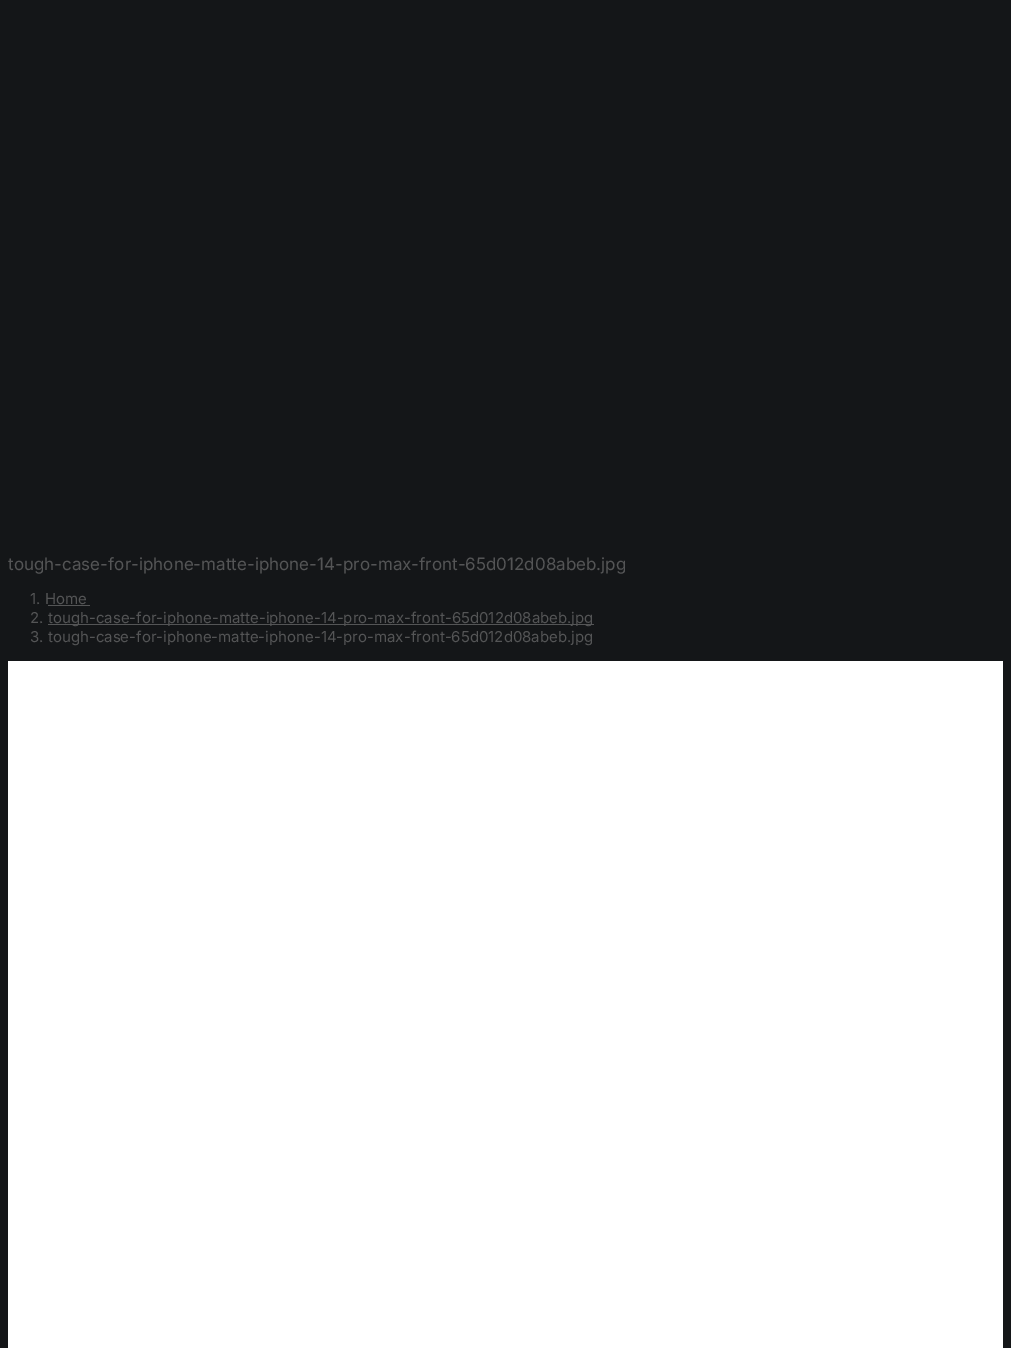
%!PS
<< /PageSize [1011 1348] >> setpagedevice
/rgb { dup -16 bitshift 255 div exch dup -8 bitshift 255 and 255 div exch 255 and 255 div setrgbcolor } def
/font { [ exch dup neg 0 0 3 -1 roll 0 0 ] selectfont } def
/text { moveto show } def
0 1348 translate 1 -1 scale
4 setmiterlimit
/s1 { /Inter-Regular 17 font 16#545556 rgb } def
/s2 { /Inter-Regular 15 font 16#545556 rgb } def
16#141618 rgb
0 0 1011 1348 rectfill
s1
(tough-case-for-iphone-matte-iphone-14-pro-max-front-65d012d08abeb.jpg) 8 570 text
s2
(1. Home) 30 604 text
48 605 42 1 rectfill
(2.) 30 623 text
48 624 546 1 rectfill
(tough-case-for-iphone-matte-iphone-14-pro-max-front-65d012d08abeb.jpg) 48 623 text
(3. tough-case-for-iphone-matte-iphone-14-pro-max-front-65d012d08abeb.jpg) 30 642 text
16#FFFFFF rgb
8 661 995 687 rectfill
showpage
